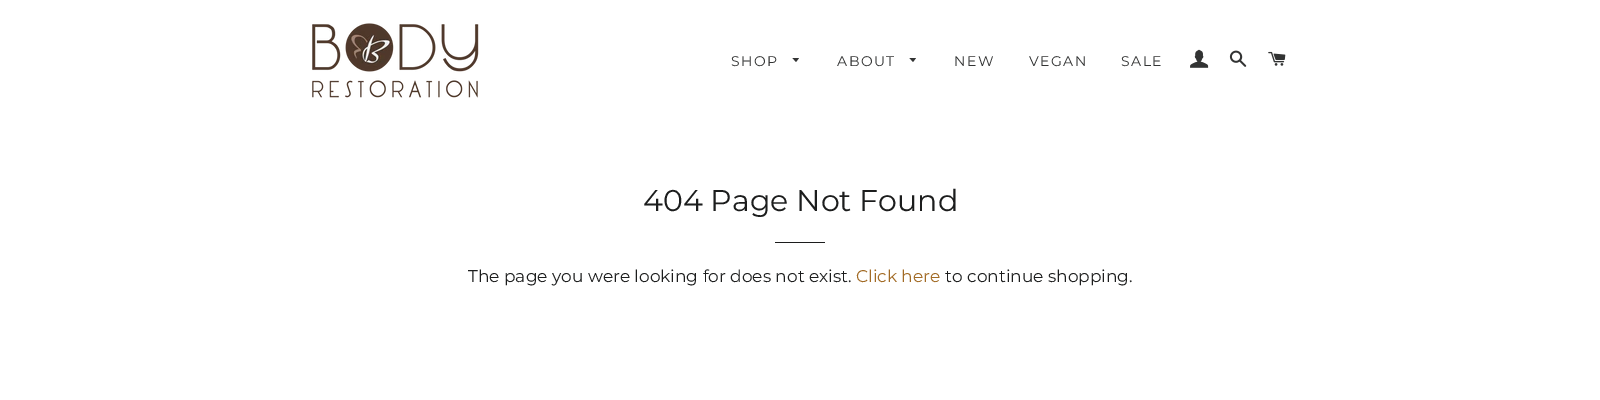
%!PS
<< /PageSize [1600 400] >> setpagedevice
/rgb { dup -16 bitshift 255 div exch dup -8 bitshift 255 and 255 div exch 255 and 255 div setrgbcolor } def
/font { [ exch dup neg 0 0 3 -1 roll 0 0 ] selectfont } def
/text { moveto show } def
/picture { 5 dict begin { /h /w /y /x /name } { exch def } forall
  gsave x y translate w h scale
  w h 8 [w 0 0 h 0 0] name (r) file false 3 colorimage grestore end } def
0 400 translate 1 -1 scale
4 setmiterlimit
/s1 { /Montserrat-Thin 30 font 16#1C1D1D rgb } def
/s2 { /Montserrat-Thin 17 font 16#1C1D1D rgb } def
/s3 { /Montserrat-Thin 17 font 16#A26B25 rgb } def
16#FFFFFF rgb
0 0 1600 400 rectfill
(pic1.raw) 312 23 167 75 picture
/Montserrat-Thin 14 font
16#333434 rgb
731 66 moveto 1.5 0 (SHOP) ashow
792.5 58 moveto 796 62 lineto 799 58 lineto closepath fill
837 66 moveto 1.5 0 (ABOUT) ashow
909.5 58 moveto 913 62 lineto 916 58 lineto closepath fill
954 66 moveto 1.5 0 (NEW) ashow
1029 66 moveto 1.5 0 (VEGAN) ashow
1121 66 moveto 1.5 0 (SALE) ashow
(pic2.raw) 1190 49 19 19 picture
(pic3.raw) 1229 50 18 17 picture
(pic4.raw) 1268 51 18 15 picture
s1
(404 Page Not Found) 643 211 text
775 242 50 1 rectfill
s2
(The page you were looking for does not exist.) 468 282 text
s3
(Click here) 856 282 text
s2
(to continue shopping.) 945 282 text
showpage
